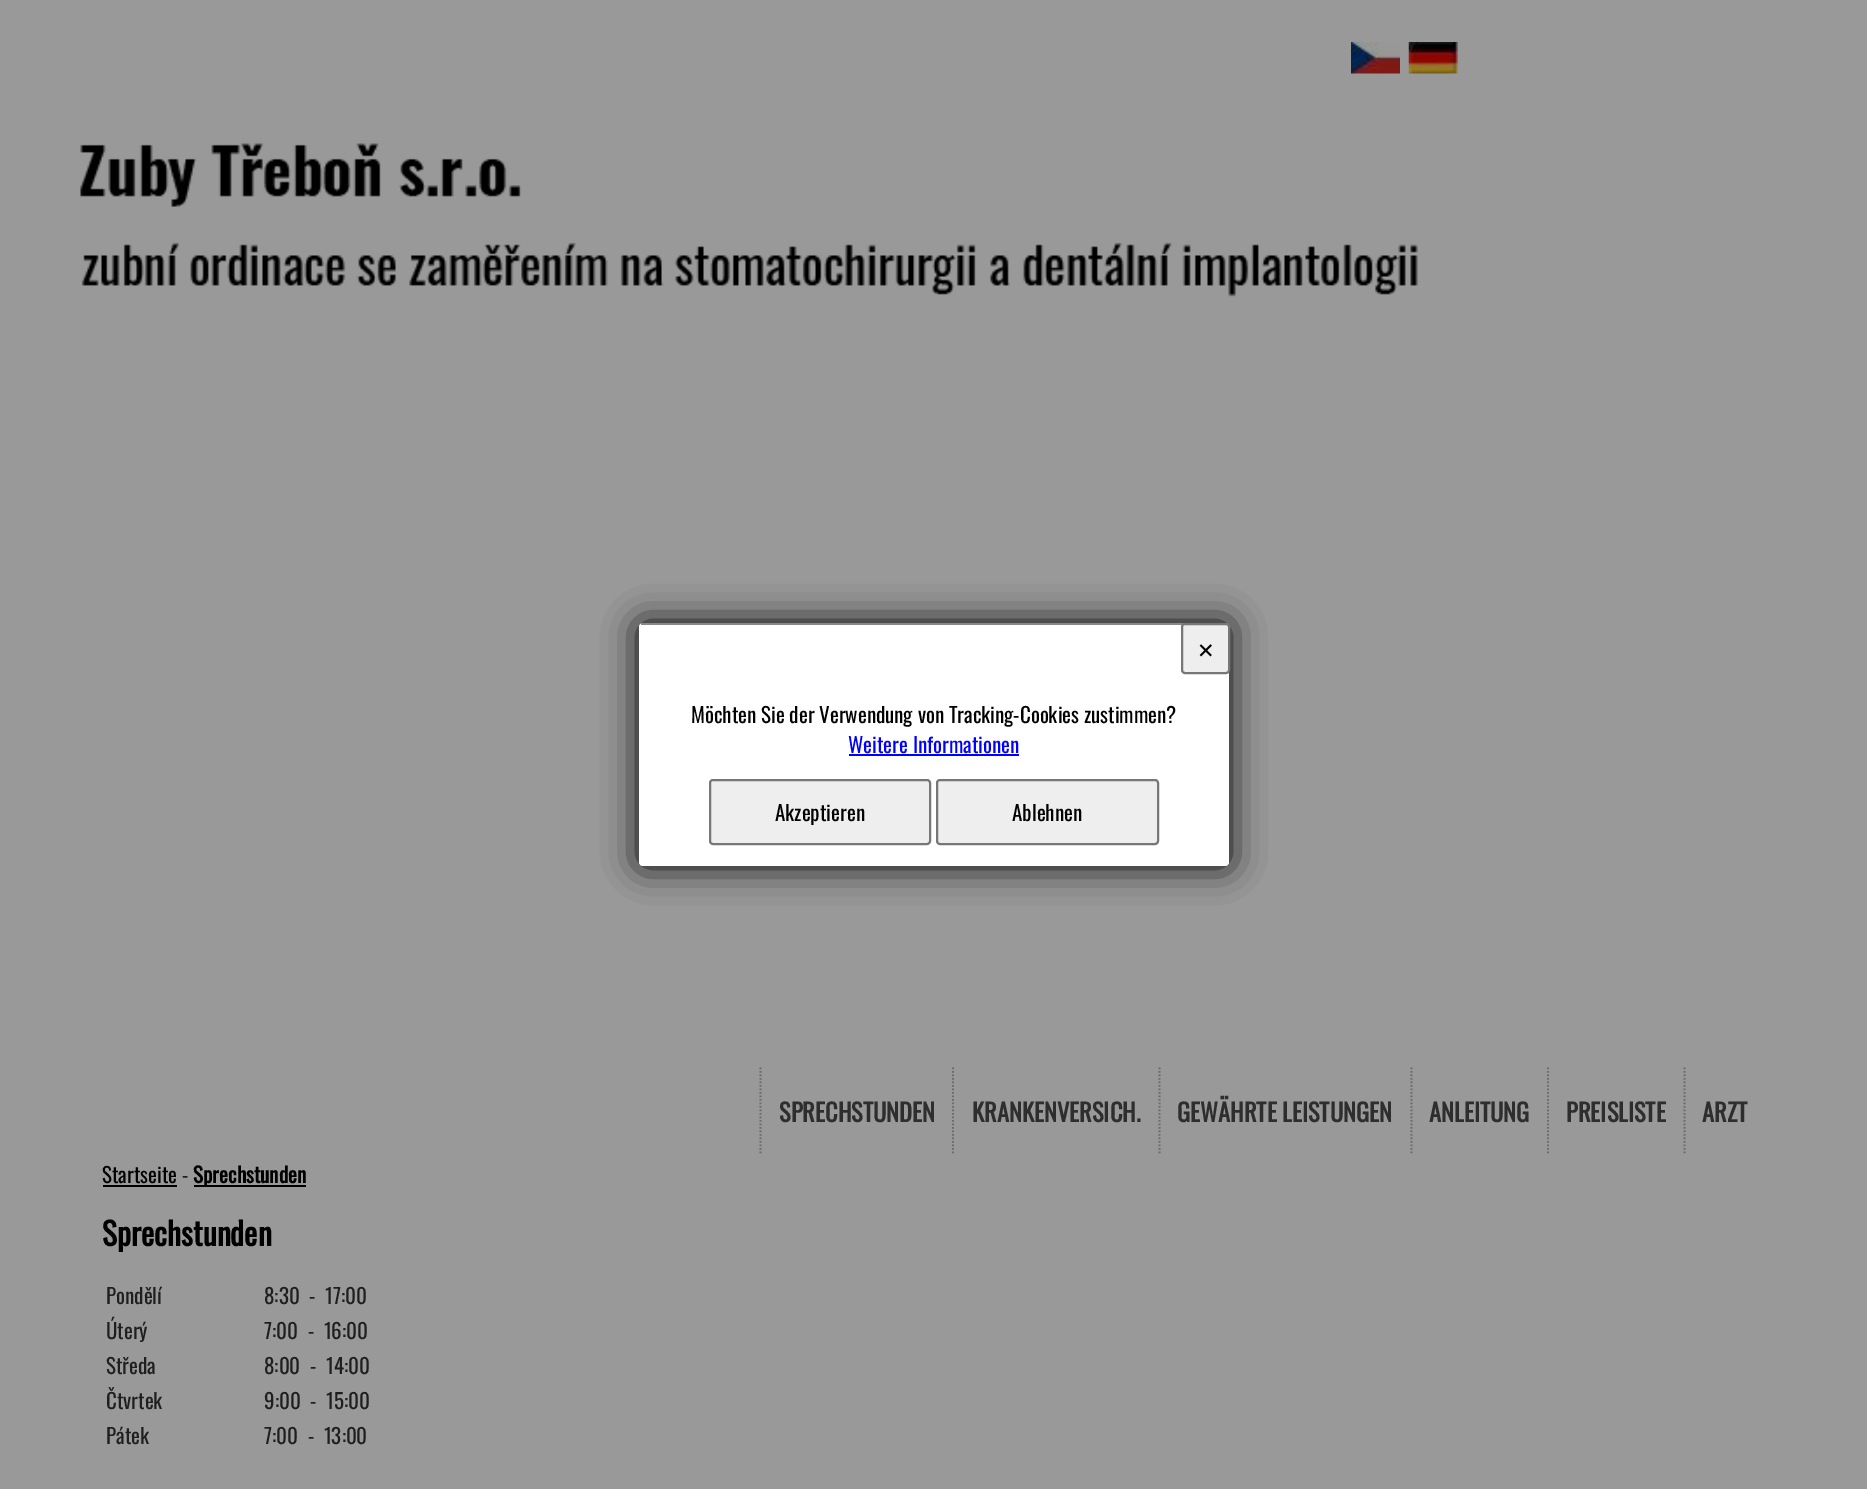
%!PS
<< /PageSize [1867 1489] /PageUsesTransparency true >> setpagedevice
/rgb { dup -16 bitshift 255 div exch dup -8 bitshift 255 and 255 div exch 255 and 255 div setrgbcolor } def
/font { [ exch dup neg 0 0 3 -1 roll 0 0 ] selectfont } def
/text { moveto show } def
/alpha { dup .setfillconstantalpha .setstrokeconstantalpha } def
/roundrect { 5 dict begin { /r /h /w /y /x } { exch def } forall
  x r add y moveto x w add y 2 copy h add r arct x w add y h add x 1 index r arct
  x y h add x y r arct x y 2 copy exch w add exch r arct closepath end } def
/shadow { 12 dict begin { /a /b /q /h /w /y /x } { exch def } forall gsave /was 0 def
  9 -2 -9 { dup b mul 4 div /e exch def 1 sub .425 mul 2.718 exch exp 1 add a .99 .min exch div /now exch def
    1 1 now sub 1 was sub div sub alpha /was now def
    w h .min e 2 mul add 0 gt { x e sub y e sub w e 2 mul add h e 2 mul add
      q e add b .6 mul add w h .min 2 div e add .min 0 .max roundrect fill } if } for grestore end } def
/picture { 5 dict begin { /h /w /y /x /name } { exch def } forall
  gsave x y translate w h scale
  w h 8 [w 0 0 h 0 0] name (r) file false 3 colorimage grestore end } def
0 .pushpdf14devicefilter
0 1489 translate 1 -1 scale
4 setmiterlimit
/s1 { /DejaVuSans-Regular 21 font 16#000000 rgb } def
/s2 { /Oswald-Regular 21 font 16#000000 rgb } def
/s3 { /Oswald-Regular 21 font 16#0000FF rgb } def
/s4 { /Oswald-Bold 24.5 font 16#2E2E2E rgb } def
/s5 { /Oswald-Regular 21 font 16#1F1F1F rgb } def
/s6 { /Oswald-Bold 21 font 16#000000 rgb } def
/s7 { /Oswald-Bold 31.5 font 16#000000 rgb } def
16#999999 rgb
0 0 1867 1489 rectfill
16#000000 rgb
639 623 590 243 4 17.5 1 shadow
16#FFFFFF rgb
639 623 590 243 4 roundrect fill
16#888888 rgb
641 623 586 2 rectfill
16#EEEEEE rgb
1182 624 47 49 3 roundrect gsave fill grestore
16#777777 rgb
2 setlinewidth
stroke
s1
(✕) 1197 658 text
s2
(Möchten Sie der Verwendung von Tracking-Cookies zustimmen?) 691 723 text
s3
(Weitere Informationen) 848 753 text
849 754 170 2 rectfill
16#EEEEEE rgb
710 780 220 64 3 roundrect gsave fill grestore
16#777777 rgb
stroke
s2
(Akzeptieren) 775 821 text
16#EEEEEE rgb
937 780 221 64 3 roundrect gsave fill grestore
16#777777 rgb
stroke
s2
(Ablehnen) 1012 821 text
(pic1.raw) 1351 42 49 32 picture
(pic2.raw) 1408 42 50 32 picture
(pic3.raw) 80 143 1338 154 picture
16#6B6B6B rgb
1.8 setlinewidth
[1.75 1.75] 0 setdash
760.5 1067.5 moveto 760.5 1155 lineto stroke
s4
(SPRECHSTUNDEN) 779 1122 text
16#6B6B6B rgb
953 1067.5 moveto 953 1155 lineto stroke
s4
(KRANKENVERSICH.) 972 1122 text
16#6B6B6B rgb
1159.5 1067.5 moveto 1159.5 1155 lineto stroke
s4
(GEWÄHRTE LEISTUNGEN) 1177 1122 text
16#6B6B6B rgb
1411.5 1067.5 moveto 1411.5 1155 lineto stroke
s4
(ANLEITUNG) 1429 1122 text
16#6B6B6B rgb
1548 1067.5 moveto 1548 1155 lineto stroke
s4
(PREISLISTE) 1566 1122 text
16#6B6B6B rgb
1684.5 1067.5 moveto 1684.5 1155 lineto stroke
s4
(ARZT) 1702 1122 text
s2
(Startseite) 102 1183 text
103 1185 74 2 rectfill
s5
(-) 182 1183 text
16#000000 rgb
194 1185 112 2 rectfill
s6
(Sprechstunden) 193 1183 text
s7
(Sprechstunden) 102 1246 text
s5
(Pondělí) 106 1304 text
(8:30  -  17:00) 264 1304 text
(Úterý) 106 1339 text
(7:00  -  16:00) 264 1339 text
(Středa) 106 1374 text
(8:00  -  14:00) 264 1374 text
(Čtvrtek) 106 1409 text
(9:00  -  15:00) 264 1409 text
(Pátek) 106 1444 text
(7:00  -  13:00) 264 1444 text
.poppdf14devicefilter showpage
